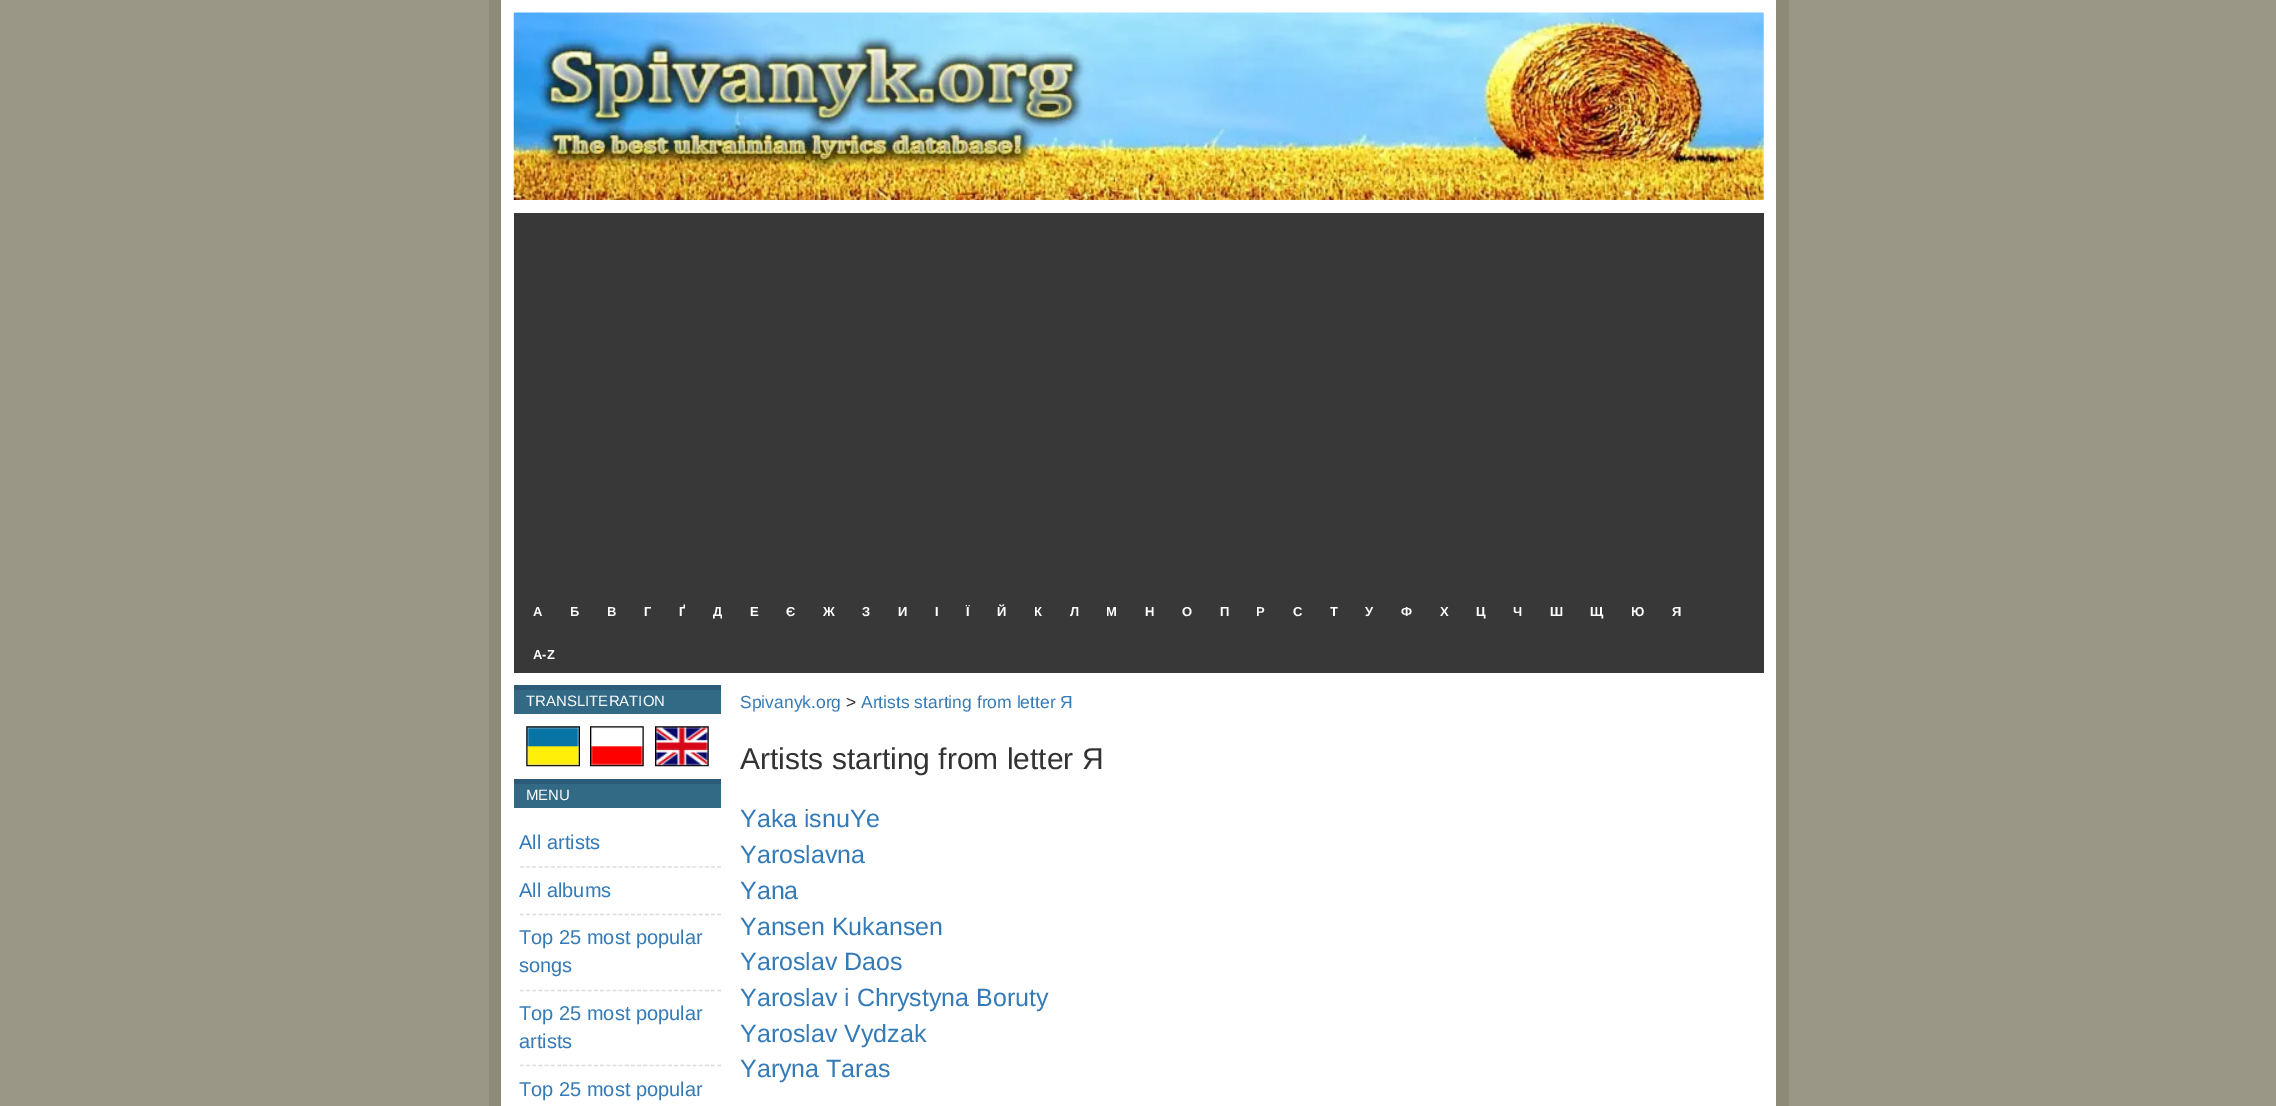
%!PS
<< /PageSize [2276 1106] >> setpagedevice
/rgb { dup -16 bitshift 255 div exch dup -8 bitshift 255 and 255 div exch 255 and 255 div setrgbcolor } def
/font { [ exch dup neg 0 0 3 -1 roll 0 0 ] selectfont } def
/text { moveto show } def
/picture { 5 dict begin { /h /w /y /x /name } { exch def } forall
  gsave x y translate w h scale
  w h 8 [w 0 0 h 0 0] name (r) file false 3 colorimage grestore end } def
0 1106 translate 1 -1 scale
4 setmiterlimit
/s1 { /LiberationSans-Bold 13 font 16#FFFFFF rgb } def
/s2 { /LiberationSans-Regular 15 font 16#FFFFFF rgb } def
/s3 { /LiberationSans-Regular 20 font 16#337AB7 rgb } def
/s4 { /LiberationSans-Regular 17.5 font 16#337AB7 rgb } def
/s5 { /LiberationSans-Regular 17.5 font 16#333333 rgb } def
/s6 { /LiberationSans-Regular 30 font 16#333333 rgb } def
/s7 { /LiberationSans-Regular 25 font 16#337AB7 rgb } def
16#9A9786 rgb
0 0 2276 1106 rectfill
16#FFFFFF rgb
501 0 1275 1106 rectfill
16#8D8A77 rgb
1776 0 13 1106 rectfill
489 0 12 1106 rectfill
(pic1.raw) 513 12 1251 188 picture
16#383838 rgb
514 213 1250 460 rectfill
s1
(А) 533 616 text
(Б) 570 616 text
(В) 607 616 text
(Г) 644 616 text
(Ґ) 679 616 text
(Д) 713 616 text
(Е) 750 616 text
(Є) 786 616 text
(Ж) 823 616 text
(З) 862 616 text
(И) 898 616 text
(І) 935 616 text
(Ї) 966 616 text
(Й) 997 616 text
(К) 1034 616 text
(Л) 1070 616 text
(М) 1106 616 text
(Н) 1145 616 text
(О) 1182 616 text
(П) 1220 616 text
(Р) 1256 616 text
(С) 1293 616 text
(Т) 1330 616 text
(У) 1365 616 text
(Ф) 1401 616 text
(Х) 1440 616 text
(Ц) 1476 616 text
(Ч) 1513 616 text
(Ш) 1550 616 text
(Щ) 1590 616 text
(Ю) 1631 616 text
(Я) 1672 616 text
(A-Z) 533 659 text
16#326A85 rgb
514 690 207 24 rectfill
16#2B5B78 rgb
514 685 207 5 rectfill
s2
(TRANSLITERATION) 526 706 text
(pic2.raw) 526 726 54 41 picture
(pic3.raw) 590 726 54 41 picture
(pic4.raw) 655 726 54 41 picture
16#326A85 rgb
514 784 207 24 rectfill
16#2B5B78 rgb
514 779 207 5 rectfill
s2
(MENU) 526 800 text
16#DDDDDD rgb
1.2 setlinewidth
[3.75 2.42] 0 setdash
520 867 moveto 721 867 lineto stroke
s3
(All artists) 519 849 text
16#DDDDDD rgb
520 914.5 moveto 721 914.5 lineto stroke
s3
(All albums) 519 897 text
16#DDDDDD rgb
520 990.5 moveto 721 990.5 lineto stroke
s3
(Top 25 most popular) 519 944 text
(songs) 519 972 text
16#DDDDDD rgb
520 1065.5 moveto 721 1065.5 lineto stroke
s3
(Top 25 most popular) 519 1020 text
(artists) 519 1048 text
(Top 25 most popular) 519 1096 text
s4
(Spivanyk.org) 740 708 text
s5
(>) 846 708 text
s4
(Artists starting from letter Я) 861 708 text
s6
(Artists starting from letter Я) 740 769 text
s7
(Yaka isnuYe) 740 827 text
(Yaroslavna) 740 863 text
(Yana) 740 899 text
(Yansen Kukansen) 740 935 text
(Yaroslav Daos) 740 970 text
(Yaroslav i Chrystyna Boruty) 740 1006 text
(Yaroslav Vydzak) 740 1042 text
(Yaryna Taras) 740 1077 text
showpage
